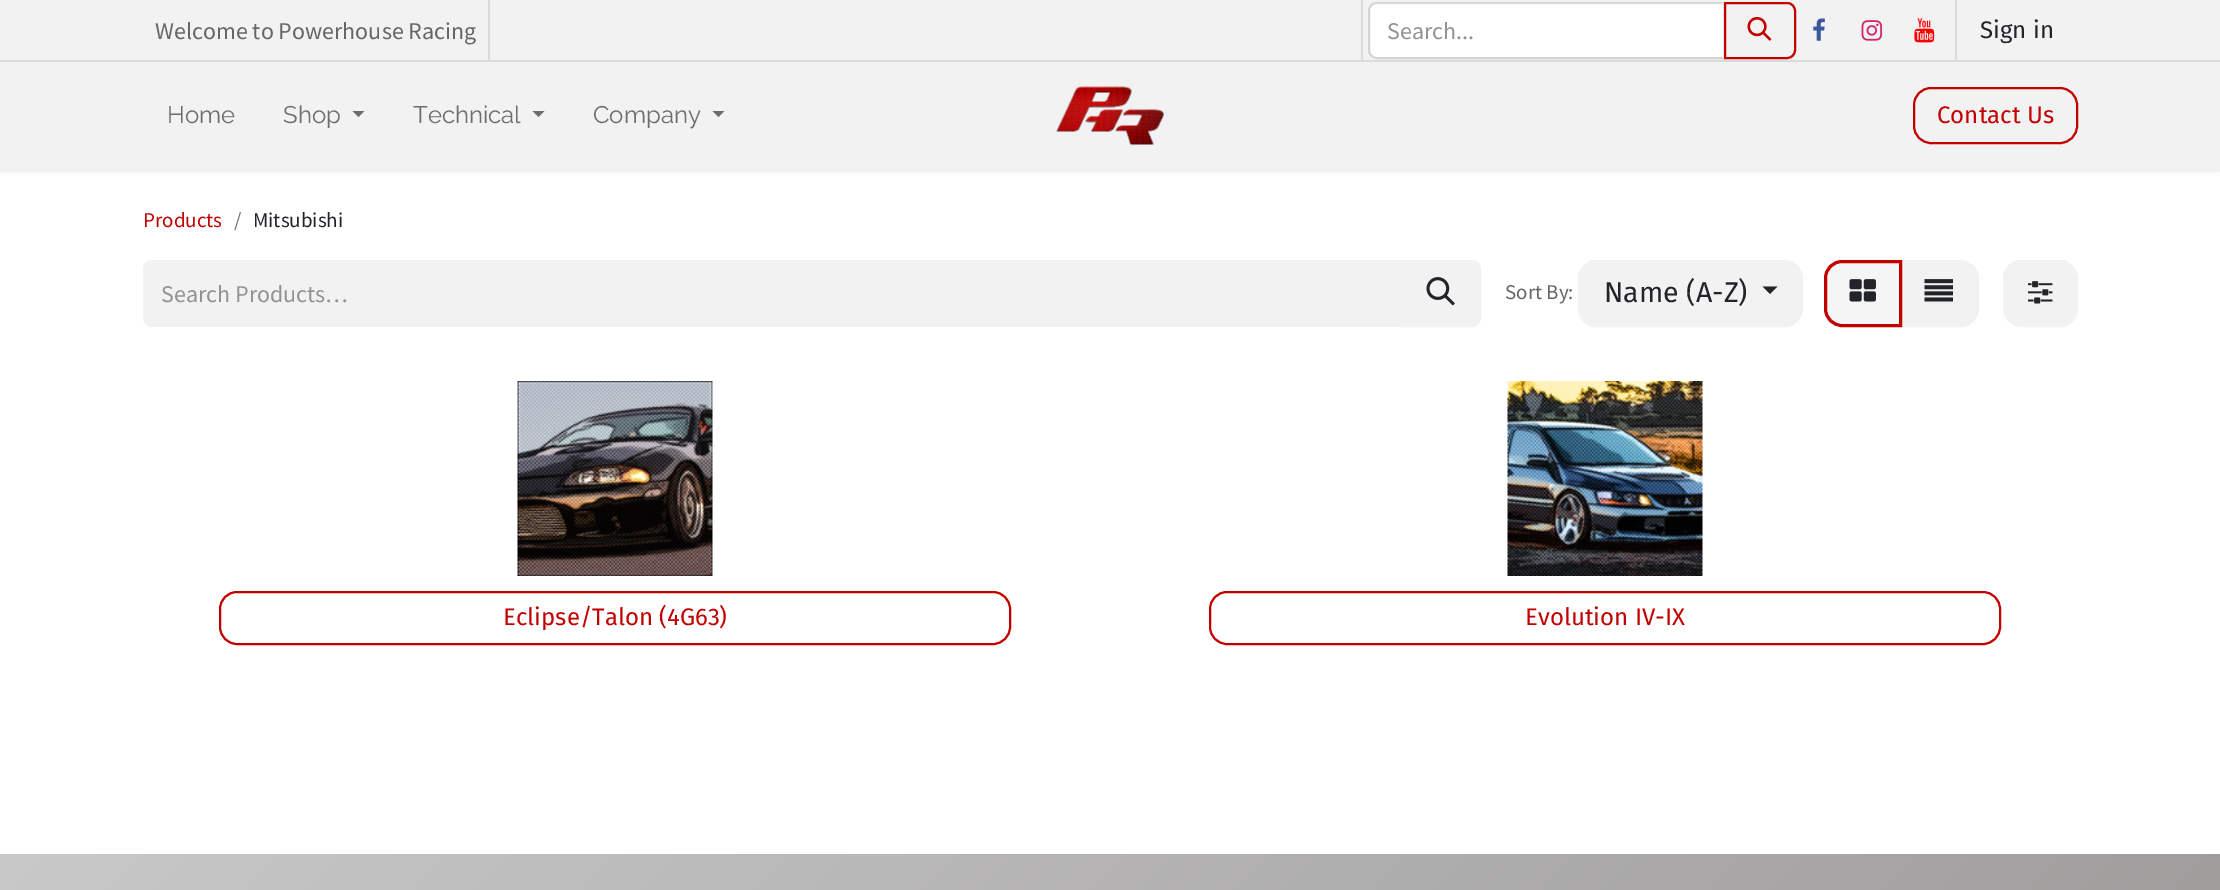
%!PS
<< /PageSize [2220 890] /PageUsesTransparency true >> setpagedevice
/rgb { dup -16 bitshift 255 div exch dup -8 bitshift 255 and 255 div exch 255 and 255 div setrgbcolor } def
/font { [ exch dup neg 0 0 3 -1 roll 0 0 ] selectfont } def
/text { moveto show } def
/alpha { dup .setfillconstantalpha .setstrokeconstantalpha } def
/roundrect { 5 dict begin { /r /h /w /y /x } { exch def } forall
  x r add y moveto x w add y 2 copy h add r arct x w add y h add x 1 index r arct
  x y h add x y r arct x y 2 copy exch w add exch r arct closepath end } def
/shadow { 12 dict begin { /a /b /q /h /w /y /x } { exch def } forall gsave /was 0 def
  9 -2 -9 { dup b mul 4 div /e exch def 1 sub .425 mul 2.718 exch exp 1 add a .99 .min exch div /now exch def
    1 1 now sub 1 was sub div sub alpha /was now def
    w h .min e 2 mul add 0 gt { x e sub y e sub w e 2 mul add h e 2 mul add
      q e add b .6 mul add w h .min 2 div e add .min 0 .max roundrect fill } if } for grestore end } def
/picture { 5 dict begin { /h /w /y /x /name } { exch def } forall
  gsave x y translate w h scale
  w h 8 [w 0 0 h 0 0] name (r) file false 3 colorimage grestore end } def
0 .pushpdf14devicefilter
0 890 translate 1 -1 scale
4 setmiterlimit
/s1 { /SourceSansPro-Regular 24 font 16#646669 rgb } def
/s2 { /SourceSansPro-Regular 24 font 16#909294 rgb } def
/s3 { /FiraSans-Regular 24 font 16#212529 rgb } def
/s4 { /Raleway-Regular 24 font 16#6D6D6D rgb } def
/s5 { /FiraSans-Regular 24 font 16#C20000 rgb } def
/s6 { /SourceSansPro-Regular 21 font 16#C20000 rgb } def
/s7 { /SourceSansPro-Regular 21 font 16#6C757D rgb } def
/s8 { /SourceSansPro-Regular 21 font 16#212529 rgb } def
/s9 { /SourceSansPro-Regular 21 font 16#646669 rgb } def
/s10 { /FiraSans-Regular 28.5 font 16#212529 rgb } def
16#FFFFFF rgb
0 0 2220 890 rectfill
16#000000 rgb
0 2 2220 169 0 2 0.1 shadow
16#F3F2F2 rgb
0 0 2220 170 rectfill
16#DBDADA rgb
0 60 2220 2 rectfill
488 0 2 60 rectfill
s1
(Welcome to Powerhouse Racing) 155 39 text
16#DBDADA rgb
1361 0 2 60 rectfill
16#FFFFFF rgb
1378 3 moveto 1724 3 lineto 1724 57 lineto 1378 57 lineto 1373.5 57 1370 53.5 1370 49 curveto 1370 11 lineto 1370 6.5 1373.5 3 1378 3 curveto closepath fill
0.15 alpha
16#212529 rgb
2 setlinewidth
1377 3 moveto 1724 3 lineto 1724 58 lineto 1377 58 lineto 1372.5 58 1369 54.5 1369 50 curveto 1369 11 lineto 1369 6.5 1372.5 3 1377 3 curveto closepath stroke
1 alpha
s2
(Search...) 1387 39 text
16#C20000 rgb
1725 3 moveto 1787 3 lineto 1791.5 3 1795 6.5 1795 11 curveto 1795 50 lineto 1795 54.5 1791.5 58 1787 58 curveto 1725 58 lineto closepath stroke
(pic1.raw) 1747 16 25 25 picture
(pic2.raw) 1813 18 12 23 picture
(pic3.raw) 1861 20 22 21 picture
(pic4.raw) 1914 18 21 25 picture
16#DBDADA rgb
1955 0 2 60 rectfill
s3
(Sign in) 1980 38 text
s4
(Home) 167 123 text
(Shop) 283 123 text
352.5 111 moveto 364.5 111 lineto 358.5 117 lineto closepath fill
(Technical) 413 123 text
532.5 111 moveto 544.5 111 lineto 538.5 117 lineto closepath fill
(Company) 593 123 text
712.5 111 moveto 724.5 111 lineto 718.5 117 lineto closepath fill
(pic5.raw) 1056 86 108 59 picture
16#C20000 rgb
1914 88 163 55 17 roundrect stroke
s5
(Contact Us) 1937 123 text
s6
(Products) 143 227 text
s7
(/) 234 227 text
s8
(Mitsubishi) 253 227 text
16#F3F2F2 rgb
152 260 moveto 1403 260 lineto 1403 327 lineto 152 327 lineto 147 327 143 323 143 318 curveto 143 269 lineto 143 264 147 260 152 260 curveto closepath fill
s2
(Search Products…) 161 302 text
16#F3F2F2 rgb
1402.5 261.5 moveto 1472 261.5 lineto 1476 261.5 1479.5 265 1479.5 269 curveto 1479.5 318 lineto 1479.5 322 1476 325.5 1472 325.5 curveto 1402.5 325.5 lineto closepath gsave fill grestore
3 setlinewidth
stroke
(pic6.raw) 1426 277 29 29 picture
s9
(Sort By:) 1505 299 text
16#F3F2F2 rgb
1579.5 261.5 222 64 16.5 roundrect gsave fill grestore
stroke
s10
(Name \(A-Z\)) 1604 302 text
1762.5 286.5 moveto 1777.5 286.5 lineto 1770 294 lineto closepath fill
16#F3F2F2 rgb
1900.5 261.5 moveto 1961 261.5 lineto 1970 261.5 1977.5 269 1977.5 278 curveto 1977.5 309 lineto 1977.5 318 1970 325.5 1961 325.5 curveto 1900.5 325.5 lineto closepath gsave fill grestore
stroke
16#F5F5F5 rgb
1842 261.5 moveto 1900.5 261.5 lineto 1900.5 325.5 lineto 1842 325.5 lineto 1833 325.5 1825.5 318 1825.5 309 curveto 1825.5 278 lineto 1825.5 269 1833 261.5 1842 261.5 curveto closepath gsave fill grestore
16#C20000 rgb
stroke
(pic7.raw) 1849 279 27 23 picture
(pic8.raw) 1924 279 29 23 picture
16#F3F2F2 rgb
2004.5 261.5 72 64 16.5 roundrect gsave fill grestore
stroke
(pic9.raw) 2028 281 25 23 picture
(pic10.raw) 517 381 196 195 picture
16#C20000 rgb
2 setlinewidth
220 592 790 52 17 roundrect stroke
s5
(Eclipse/Talon \(4G63\)) 503 625 text
(pic11.raw) 1507 381 196 195 picture
1210 592 790 52 17 roundrect stroke
(Evolution IV-IX) 1525 625 text
gsave 0 854 moveto 2220 854 lineto 2220 890 lineto 0 890 lineto closepath clip newpath
<< /ShadingType 2 /ColorSpace /DeviceRGB /Coords [403 450 1817 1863] /Extend [true true] /Function << /FunctionType 2 /Domain [0 1] /C0 [0.788 0.788 0.788] /C1 [0.588 0.573 0.573] /N 1 >> >> shfill grestore
.poppdf14devicefilter showpage
